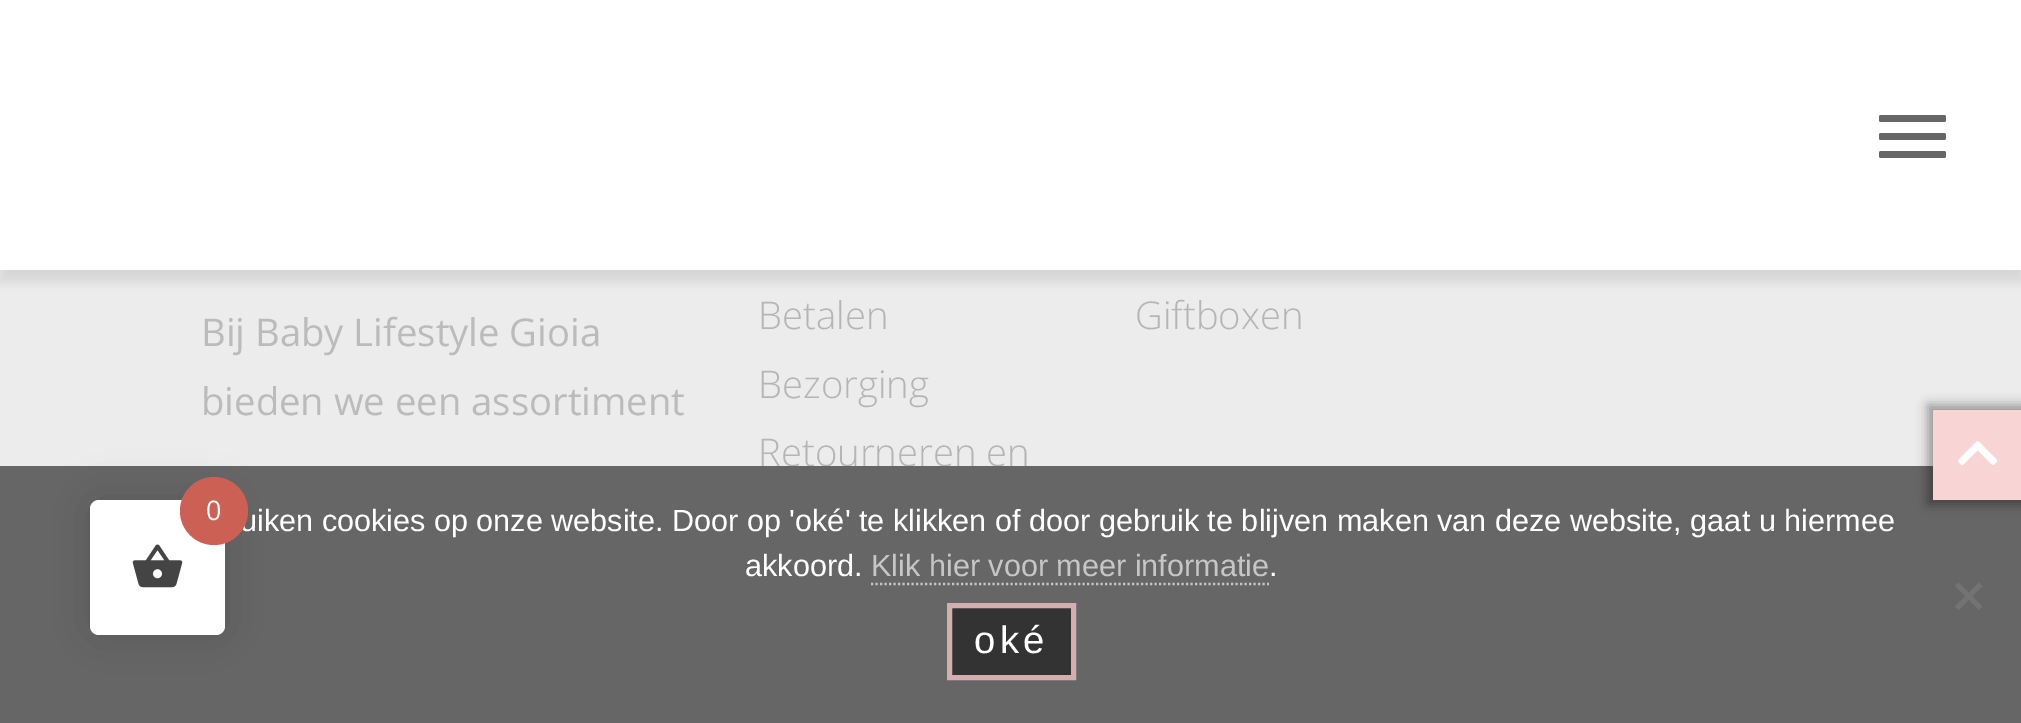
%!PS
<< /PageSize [2021 723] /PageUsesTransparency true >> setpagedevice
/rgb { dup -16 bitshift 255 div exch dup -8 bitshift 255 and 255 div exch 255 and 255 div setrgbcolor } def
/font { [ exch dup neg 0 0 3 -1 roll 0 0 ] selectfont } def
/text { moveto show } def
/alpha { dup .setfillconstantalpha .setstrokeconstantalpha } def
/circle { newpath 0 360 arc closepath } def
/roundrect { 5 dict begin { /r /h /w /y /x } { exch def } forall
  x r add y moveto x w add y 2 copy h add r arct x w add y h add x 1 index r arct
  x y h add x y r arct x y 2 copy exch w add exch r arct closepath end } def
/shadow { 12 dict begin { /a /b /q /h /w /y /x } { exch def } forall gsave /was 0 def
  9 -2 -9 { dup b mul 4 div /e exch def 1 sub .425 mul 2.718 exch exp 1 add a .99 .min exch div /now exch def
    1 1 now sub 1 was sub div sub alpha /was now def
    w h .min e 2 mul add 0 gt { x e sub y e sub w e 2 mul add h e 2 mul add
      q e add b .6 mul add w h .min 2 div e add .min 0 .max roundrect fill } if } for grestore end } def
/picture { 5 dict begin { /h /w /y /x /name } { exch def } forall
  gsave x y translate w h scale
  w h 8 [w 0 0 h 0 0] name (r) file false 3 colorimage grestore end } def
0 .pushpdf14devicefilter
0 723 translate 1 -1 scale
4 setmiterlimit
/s1 { /OpenSans-Regular 38.25 font 16#BBBBBB rgb } def
/s2 { /OpenSans-Light 38.25 font 16#B5B5B5 rgb } def
/s3 { /LiberationSans-Regular 30.6 font 16#FFFFFF rgb } def
/s4 { /OpenSans-Regular 27 font 16#FFFFFF rgb } def
/s5 { /LiberationSans-Regular 30.6 font 16#C6C6C6 rgb } def
16#ECECEC rgb
0 0 2021 723 rectfill
16#000000 rgb
0 11 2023 270 0 5.5 0.1 shadow
16#FFFFFF rgb
0 0 2021 270 rectfill
16#666666 rgb
1879 115 67 7 2 roundrect fill
1879 133 67 7 2 roundrect fill
1879 151 67 7 2 roundrect fill
s1
(Bij Baby Lifestyle Gioia) 201 346 text
(bieden we een assortiment) 201 415 text
s2
(Betalen) 758 329 text
(Bezorging) 758 398 text
(Retourneren en) 758 466 text
(Giftboxen) 1135 329 text
16#666666 rgb
0 466 2021 257 rectfill
16#000000 rgb
1928 405 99 99 0 5.5 0.37 shadow
16#F8D4D5 rgb
1933 410 88 90 rectfill
(pic1.raw) 1958 441 39 24 picture
16#000000 rgb
90 500 135 135 9 22.5 0.15 shadow
16#FFFFFF rgb
90 500 135 135 9 roundrect fill
(pic2.raw) 132 544 51 44 picture
s3
(uiken cookies op onze website. Door op 'oké' te klikken of door gebruik te blijven maken van deze website, gaat u hiermee) 240 531 text
16#CC6055 rgb
214 511 34 circle fill
s4
(0) 206 520 text
s3
(akkoord.) 745 576 text
s5
(Klik hier voor meer informatie) 871 576 text
2.2 setlinewidth
[2.25 2.25] 0 setdash
871 584 moveto 1269 584 lineto stroke
s3
(.) 1269 576 text
16#737373 rgb
1979 582.5 moveto 1982.5 586 lineto 1958.5 610 lineto 1955 606.5 lineto closepath fill
1955 586 moveto 1958.5 582.5 lineto 1982.5 606.5 lineto 1979 610 lineto closepath fill
16#333333 rgb
949.5 605.5 moveto 1073.5 605.5 lineto 1073.5 677.5 lineto 949.5 677.5 lineto closepath gsave fill grestore
16#D4AEAF rgb
5 setlinewidth
[] 0 setdash
stroke
/LiberationSans-Regular 38.25 font
16#FFFFFF rgb
974 653 moveto 4.5 0 (oké) ashow
.poppdf14devicefilter showpage
